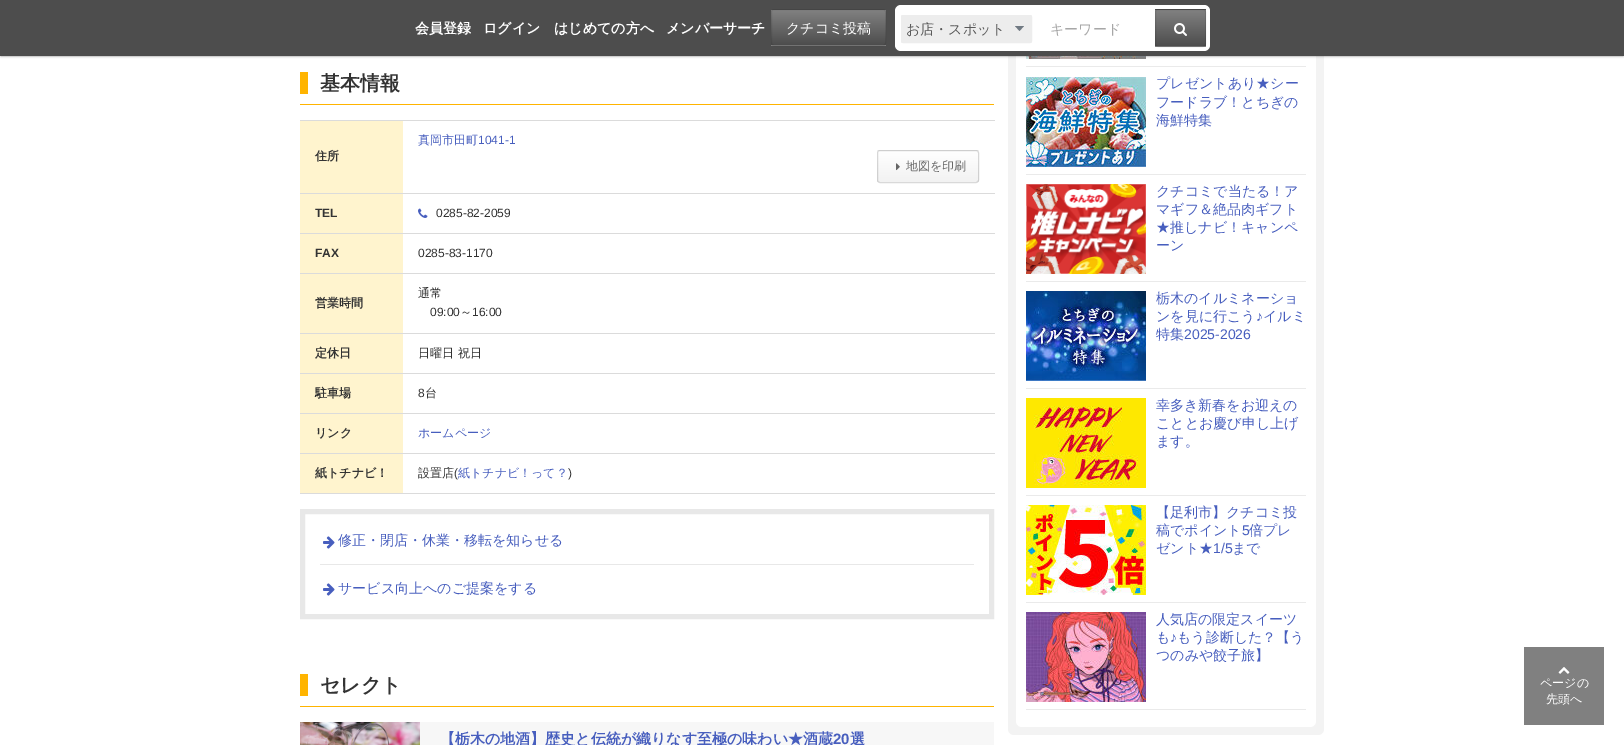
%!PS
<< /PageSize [1624 745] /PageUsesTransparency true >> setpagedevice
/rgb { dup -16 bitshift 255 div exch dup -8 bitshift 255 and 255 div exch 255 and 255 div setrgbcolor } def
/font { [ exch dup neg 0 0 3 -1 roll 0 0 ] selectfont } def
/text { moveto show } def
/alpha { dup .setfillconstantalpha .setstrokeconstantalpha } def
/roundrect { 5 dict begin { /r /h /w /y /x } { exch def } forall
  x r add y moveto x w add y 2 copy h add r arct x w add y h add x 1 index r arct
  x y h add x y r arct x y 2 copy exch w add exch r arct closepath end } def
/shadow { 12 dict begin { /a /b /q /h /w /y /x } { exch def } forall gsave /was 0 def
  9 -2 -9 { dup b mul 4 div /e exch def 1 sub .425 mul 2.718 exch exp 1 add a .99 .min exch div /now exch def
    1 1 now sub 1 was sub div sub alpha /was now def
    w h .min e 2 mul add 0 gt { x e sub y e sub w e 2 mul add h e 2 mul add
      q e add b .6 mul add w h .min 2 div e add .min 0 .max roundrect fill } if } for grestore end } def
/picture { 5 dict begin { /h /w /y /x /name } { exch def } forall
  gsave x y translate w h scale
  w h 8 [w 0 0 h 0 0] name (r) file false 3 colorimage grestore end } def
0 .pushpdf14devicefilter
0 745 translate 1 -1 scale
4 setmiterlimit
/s1 { /WenQuanYiZenHei-Bold 14 font 16#FFFFFF rgb } def
/s2 { /WenQuanYiZenHei-Medium 14 font 16#FFFFFF rgb } def
/s3 { /WenQuanYiZenHei-Medium 14 font 16#5A5A5A rgb } def
/s4 { /WenQuanYiZenHei-Medium 14 font 16#A7A7A7 rgb } def
/s5 { /WenQuanYiZenHei-Bold 20 font 16#333333 rgb } def
/s6 { /WenQuanYiZenHei-Bold 12 font 16#333333 rgb } def
/s7 { /WenQuanYiZenHei-Medium 12 font 16#475EBE rgb } def
/s8 { /LiberationSans-Regular 12 font 16#475EBE rgb } def
/s9 { /WenQuanYiZenHei-Medium 12 font 16#666666 rgb } def
/s10 { /LiberationSans-Bold 12 font 16#333333 rgb } def
/s11 { /LiberationSans-Regular 12 font 16#333333 rgb } def
/s12 { /WenQuanYiZenHei-Medium 12 font 16#333333 rgb } def
/s13 { /WenQuanYiZenHei-Medium 14 font 16#475EBE rgb } def
/s14 { /WenQuanYiZenHei-Bold 15 font 16#475EBE rgb } def
/s15 { /LiberationSans-Bold 15 font 16#475EBE rgb } def
/s16 { /LiberationSans-Regular 14 font 16#475EBE rgb } def
/s17 { /WenQuanYiZenHei-Medium 12 font 16#FFFFFF rgb } def
16#FFFFFF rgb
0 0 1624 745 rectfill
16#F3F3F3 rgb
1008 -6 316 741 6 roundrect fill
16#FFFFFF rgb
1016 -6 300 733 6 roundrect fill
(pic6.raw) 1026 56 120 3 picture
16#000000 rgb
1 1 1622 54 0 1.5 1 shadow
16#4D4D4D rgb
0 0 1624 56 rectfill
s1
(会員登録) 415 33 text
(ログイン) 483 33 text
(はじめての方へ) 554 33 text
(メンバーサーチ) 666 33 text
gsave
771 9 115 37 3 roundrect clip newpath
gsave 771 10 moveto 886 10 lineto 886 45 lineto 771 45 lineto closepath clip newpath
<< /ShadingType 2 /ColorSpace /DeviceRGB /Coords [829 10 829 45] /Extend [true true] /Function << /FunctionType 2 /Domain [0 1] /C0 [0.506 0.506 0.506] /C1 [0.302 0.302 0.302] /N 1 >> >> shfill grestore
gsave 771 45 moveto 886 45 lineto 886 46 lineto 771 46 lineto closepath clip newpath
<< /ShadingType 2 /ColorSpace /DeviceRGB /Coords [829 45 829 80] /Extend [true true] /Function << /FunctionType 2 /Domain [0 1] /C0 [0.506 0.506 0.506] /C1 [0.302 0.302 0.302] /N 1 >> >> shfill grestore
grestore
0.1 alpha
16#000000 rgb
771.5 9.5 114 36 2.5 roundrect stroke
1 alpha
s2
(クチコミ投稿) 786 33 text
895 5 315 46 6 roundrect fill
16#EDEDED rgb
901 15 131 28 2 roundrect fill
16#717A83 rgb
1024 26 moveto 1019.5 31 lineto 1015 26 lineto closepath fill
16#EDEDED rgb
901.5 15.5 130 27 1.5 roundrect stroke
s3
(お店・スポット) 906 34 text
s4
(キーワード) 1050 34 text
gsave
1155 9 51 38 3 roundrect clip newpath
gsave 1155 9 moveto 1206 9 lineto 1206 10 lineto 1155 10 lineto closepath clip newpath
<< /ShadingType 2 /ColorSpace /DeviceRGB /Coords [1181 -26 1181 10] /Extend [true true] /Function << /FunctionType 2 /Domain [0 1] /C0 [0.506 0.506 0.506] /C1 [0.302 0.302 0.302] /N 1 >> >> shfill grestore
gsave 1155 10 moveto 1206 10 lineto 1206 46 lineto 1155 46 lineto closepath clip newpath
<< /ShadingType 2 /ColorSpace /DeviceRGB /Coords [1181 10 1181 46] /Extend [true true] /Function << /FunctionType 2 /Domain [0 1] /C0 [0.506 0.506 0.506] /C1 [0.302 0.302 0.302] /N 1 >> >> shfill grestore
gsave 1155 46 moveto 1206 46 lineto 1206 47 lineto 1155 47 lineto closepath clip newpath
<< /ShadingType 2 /ColorSpace /DeviceRGB /Coords [1181 46 1181 82] /Extend [true true] /Function << /FunctionType 2 /Domain [0 1] /C0 [0.506 0.506 0.506] /C1 [0.302 0.302 0.302] /N 1 >> >> shfill grestore
grestore
0.1 alpha
16#000000 rgb
1155.5 9.5 50 37 2.5 roundrect stroke
1 alpha
(pic1.raw) 1174 23 13 13 picture
16#FFB400 rgb
300 104 694 1 rectfill
s5
(基本情報) 320 90 text
16#FFB400 rgb
300 72 8 22 rectfill
16#FFF4CE rgb
300 121 103 72 rectfill
s6
(住所) 315 160 text
16#DBDBDB rgb
300 120 695 1 rectfill
s7
(真岡市田町) 418 144 text
s8
(1041-1) 478 144 text
gsave
877 150 102 33 3 roundrect clip newpath
gsave 877 150 moveto 979 150 lineto 979 151 lineto 877 151 lineto closepath clip newpath
<< /ShadingType 2 /ColorSpace /DeviceRGB /Coords [928 120 928 151] /Extend [true true] /Function << /FunctionType 2 /Domain [0 1] /C0 [1 1 1] /C1 [0.949 0.949 0.949] /N 1 >> >> shfill grestore
gsave 877 151 moveto 979 151 lineto 979 182 lineto 877 182 lineto closepath clip newpath
<< /ShadingType 2 /ColorSpace /DeviceRGB /Coords [928 151 928 182] /Extend [true true] /Function << /FunctionType 2 /Domain [0 1] /C0 [1 1 1] /C1 [0.949 0.949 0.949] /N 1 >> >> shfill grestore
grestore
0.15 alpha
16#000000 rgb
877.5 150.5 101 32 2.5 roundrect stroke
1 alpha
(pic2.raw) 896 163 4 8 picture
s9
(地図を印刷) 906 170 text
16#FFF4CE rgb
300 194 103 39 rectfill
s10
(TEL) 315 217 text
16#DBDBDB rgb
300 193 695 1 rectfill
(pic3.raw) 418 208 10 10 picture
s11
(0285-82-2059) 436 217 text
16#FFF4CE rgb
300 234 103 39 rectfill
s10
(FAX) 315 257 text
16#DBDBDB rgb
300 233 695 1 rectfill
s11
(0285-83-1170) 418 257 text
16#FFF4CE rgb
300 274 103 59 rectfill
s6
(営業時間) 315 307 text
16#DBDBDB rgb
300 273 695 1 rectfill
s12
(通常) 418 297 text
s11
(09:00) 430 316 text
s12
(～) 460 316 text
s11
(16:00) 472 316 text
16#FFF4CE rgb
300 334 103 39 rectfill
s6
(定休日) 315 357 text
16#DBDBDB rgb
300 333 695 1 rectfill
s12
(日曜日 祝日) 418 357 text
16#FFF4CE rgb
300 374 103 39 rectfill
s6
(駐車場) 315 397 text
16#DBDBDB rgb
300 373 695 1 rectfill
s11
(8) 418 397 text
s12
(台) 425 397 text
16#FFF4CE rgb
300 414 103 39 rectfill
s6
(リンク) 315 437 text
16#DBDBDB rgb
300 413 695 1 rectfill
s7
(ホームページ) 418 437 text
16#FFF4CE rgb
300 454 103 39 rectfill
s6
(紙トチナビ！) 315 477 text
16#DBDBDB rgb
300 453 695 1 rectfill
300 493 695 1 rectfill
s12
(設置店) 418 477 text
s11
(\() 454 477 text
s7
(紙トチナビ！って？) 458 477 text
s11
(\)) 568 477 text
16#E8E8E8 rgb
5 setlinewidth
302.5 511.5 689 105 rectstroke
(pic4.raw) 323 536 12 13 picture
s13
(修正・閉店・休業・移転を知らせる) 338 545 text
16#E8E8E8 rgb
320 564 654 1 rectfill
(pic4.raw) 323 583 12 13 picture
s13
(サービス向上へのご提案をする) 338 593 text
16#FFB400 rgb
300 706 694 1 rectfill
s5
(セレクト) 320 692 text
16#FFB400 rgb
300 674 8 22 rectfill
16#F7F7F7 rgb
420 722 574 23 rectfill
(pic5.raw) 300 722 120 23 picture
s14
(【栃木の地酒】歴史と伝統が織りなす至極の味わい★酒蔵) 440 744 text
s15
(20) 833 744 text
s14
(選) 850 744 text
16#EAEAEA rgb
1026 66 280 1 rectfill
1026 174 280 1 rectfill
(pic7.raw) 1026 77 120 90 picture
s13
(プレゼントあり★シー) 1156 88 text
(フードラブ！とちぎの) 1156 107 text
(海鮮特集) 1156 125 text
16#EAEAEA rgb
1026 281 280 1 rectfill
(pic8.raw) 1026 184 120 90 picture
s13
(クチコミで当たる！ア) 1156 196 text
(マギフ＆絶品肉ギフト) 1156 214 text
(★推しナビ！キャンペ) 1156 232 text
(ーン) 1156 250 text
16#EAEAEA rgb
1026 388 280 1 rectfill
(pic9.raw) 1026 291 120 90 picture
s13
(栃木のイルミネーショ) 1156 303 text
(ンを見に行こう) 1156 321 text
s16
(♪) 1256 321 text
s13
(イルミ) 1263 321 text
(特集) 1156 339 text
s16
(2025-2026) 1184 339 text
16#EAEAEA rgb
1026 495 280 1 rectfill
(pic10.raw) 1026 398 120 90 picture
s13
(幸多き新春をお迎えの) 1156 410 text
(こととお慶び申し上げ) 1156 428 text
(ます。) 1156 446 text
16#EAEAEA rgb
1026 602 280 1 rectfill
(pic11.raw) 1026 505 120 90 picture
s13
(【足利市】クチコミ投) 1156 517 text
(稿でポイント) 1156 535 text
s16
(5) 1242 535 text
s13
(倍プレ) 1249 535 text
(ゼント★) 1156 553 text
s16
(1/5) 1213 553 text
s13
(まで) 1232 553 text
16#EAEAEA rgb
1026 709 280 1 rectfill
(pic12.raw) 1026 612 120 90 picture
s13
(人気店の限定スイーツ) 1156 624 text
(も) 1156 642 text
s16
(♪) 1170 642 text
s13
(もう診断した？【う) 1177 642 text
(つのみや餃子旅】) 1156 660 text
16#808080 rgb
1524 647 80 78 rectfill
(pic13.raw) 1558 667 12 7 picture
s17
(ページの) 1540 687 text
(先頭へ) 1546 703 text
.poppdf14devicefilter showpage
